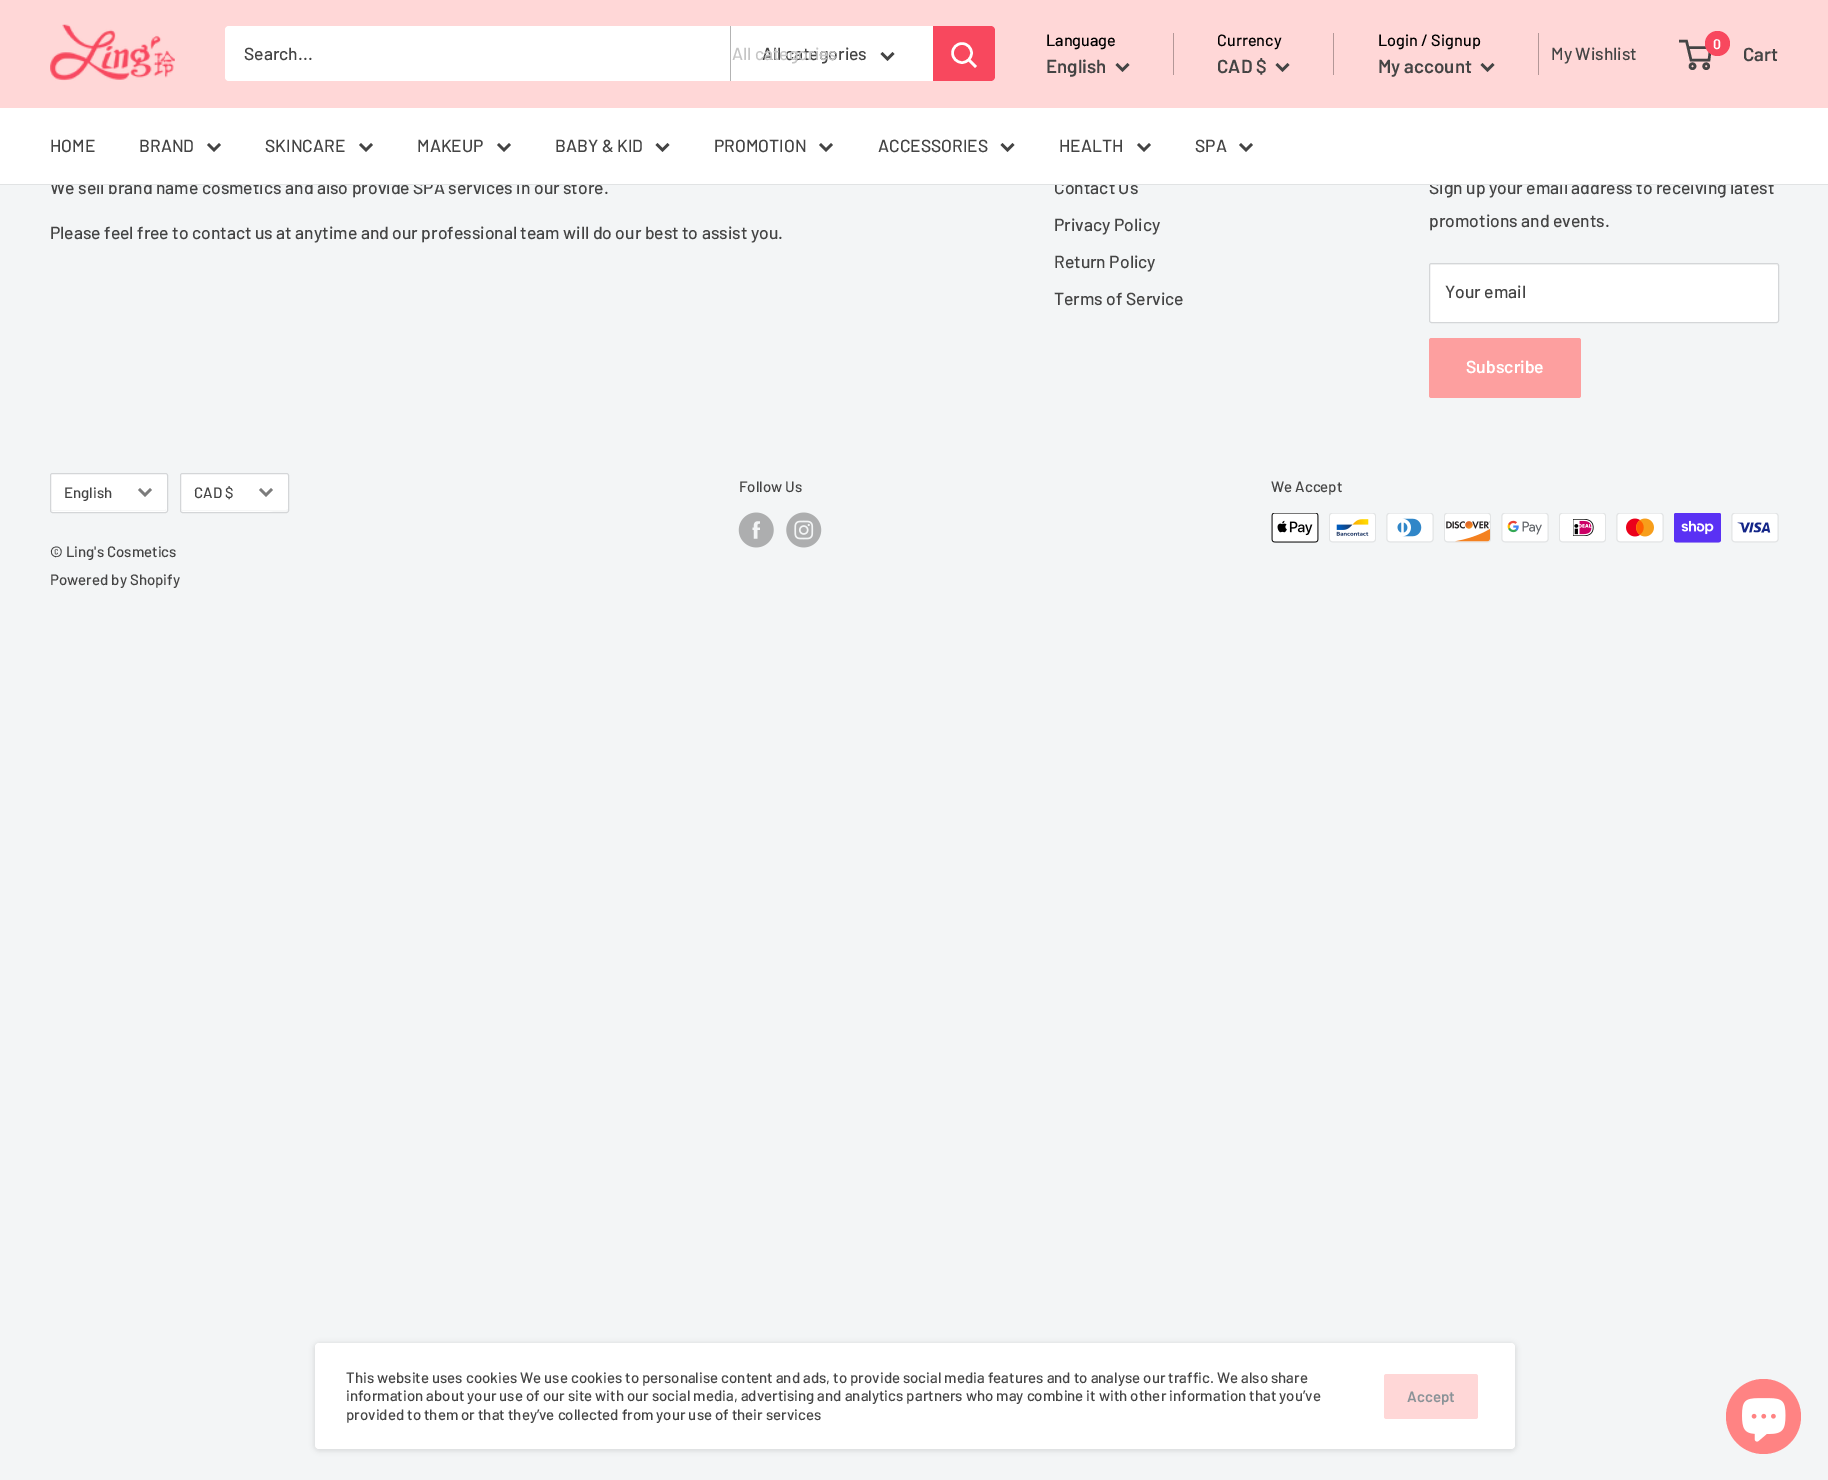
%!PS
<< /PageSize [1828 1480] /PageUsesTransparency true >> setpagedevice
/rgb { dup -16 bitshift 255 div exch dup -8 bitshift 255 and 255 div exch 255 and 255 div setrgbcolor } def
/font { [ exch dup neg 0 0 3 -1 roll 0 0 ] selectfont } def
/text { moveto show } def
/alpha { dup .setfillconstantalpha .setstrokeconstantalpha } def
/circle { newpath 0 360 arc closepath } def
/roundrect { 5 dict begin { /r /h /w /y /x } { exch def } forall
  x r add y moveto x w add y 2 copy h add r arct x w add y h add x 1 index r arct
  x y h add x y r arct x y 2 copy exch w add exch r arct closepath end } def
/shadow { 12 dict begin { /a /b /q /h /w /y /x } { exch def } forall gsave /was 0 def
  9 -2 -9 { dup b mul 4 div /e exch def 1 sub .425 mul 2.718 exch exp 1 add a .99 .min exch div /now exch def
    1 1 now sub 1 was sub div sub alpha /was now def
    w h .min e 2 mul add 0 gt { x e sub y e sub w e 2 mul add h e 2 mul add
      q e add b .6 mul add w h .min 2 div e add .min 0 .max roundrect fill } if } for grestore end } def
/picture { 5 dict begin { /h /w /y /x /name } { exch def } forall
  gsave x y translate w h scale
  w h 8 [w 0 0 h 0 0] name (r) file false 3 colorimage grestore end } def
0 .pushpdf14devicefilter
0 1480 translate 1 -1 scale
4 setmiterlimit
/s1 { /Barlow-Medium 17.5 font 16#444444 rgb } def
/s2 { /Barlow-Medium 17.5 font 16#C5C5C5 rgb } def
/s3 { /Barlow-Medium 16.25 font 16#000000 rgb } def
/s4 { /Barlow-SemiBold 18.75 font 16#444444 rgb } def
/s5 { /Barlow-SemiBold 14 font 16#FFFFFF rgb } def
/s6 { /Barlow-SemiBold 17.5 font 16#FFFFFF rgb } def
/s7 { /Barlow-Medium 15 font 16#444444 rgb } def
/s8 { /Barlow-SemiBold 15 font 16#8A9297 rgb } def
16#F3F5F6 rgb
0 0 1828 1480 rectfill
16#FFD7D7 rgb
0 0 1828 108 rectfill
(pic1.raw) 50 24 125 57 picture
16#FFFFFF rgb
225 26 770 55 4 roundrect fill
s1
(Search...) 244 60 text
16#B3B3B3 rgb
730 26 1 55 rectfill
s1
(All categories) 762 60 text
s2
(All categories) 732 60 text
16#444444 rgb
2.5 setlinewidth
2 setlinecap
892.5 54 moveto 887.5 59 lineto 882.5 54 lineto stroke
16#F8485E rgb
933 26 moveto 991 26 lineto 993 26 995 28 995 30 curveto 995 77 lineto 995 79 993 81 991 81 curveto 933 81 lineto closepath fill
16#FFFFFF rgb
975 66 moveto 969 60 lineto stroke
0 setlinecap
962 53 9.5 circle stroke
s3
(Language) 1046 46 text
s4
(English) 1046 73 text
2 setlinecap
1127.5 65 moveto 1122.5 70 lineto 1117.5 65 lineto stroke
16#B39797 rgb
1173 33 1 42 rectfill
s3
(Currency) 1217 46 text
s4
(CAD $) 1217 73 text
1287.5 65 moveto 1282.5 70 lineto 1277.5 65 lineto stroke
16#B39797 rgb
1333 33 1 42 rectfill
s3
(Login / Signup) 1378 46 text
16#B39797 rgb
1538 33 1 42 rectfill
s4
(My account) 1378 73 text
1492.5 65 moveto 1487.5 70 lineto 1482.5 65 lineto stroke
s1
(My Wishlist) 1551 60 text
0 setlinecap
1692.5 66.2 2.5 circle stroke
1706.2 66.2 2.5 circle stroke
1688 47.5 moveto 1710.5 47.5 lineto 1709 60 lineto 1691 60 lineto 1686.5 41 lineto 1679 41 lineto stroke
16#F8485E rgb
1717.5 43.5 12.5 circle fill
s5
(0) 1713 49 text
s4
(Cart) 1743 61 text
s1
(We sell brand name cosmetics and also provide SPA services in our store.) 50 194 text
(Contact Us) 1054 194 text
(Sign up your email address to receiving latest) 1429 194 text
16#FFFFFF rgb
0 108 1828 76 rectfill
16#E1E3E4 rgb
0 184 1828 1 rectfill
s1
(HOME) 50 152 text
(BRAND) 139 152 text
2 setlinecap
219 145 moveto 214 150 lineto 209 145 lineto stroke
(SKINCARE) 265 152 text
371 145 moveto 366 150 lineto 361 145 lineto stroke
(MAKEUP) 417 152 text
509 145 moveto 504 150 lineto 499 145 lineto stroke
(BABY & KID) 555 152 text
667.5 145 moveto 662.5 150 lineto 657.5 145 lineto stroke
(PROMOTION) 714 152 text
831 145 moveto 826 150 lineto 821 145 lineto stroke
(ACCESSORIES) 878 152 text
1012.5 145 moveto 1007.5 150 lineto 1002.5 145 lineto stroke
(HEALTH) 1059 152 text
1149 145 moveto 1144 150 lineto 1139 145 lineto stroke
(SPA) 1195 152 text
1251 145 moveto 1246 150 lineto 1241 145 lineto stroke
(Please feel free to contact us at anytime and our professional team will do our best to assist you.) 50 239 text
(Privacy Policy) 1054 231 text
(Return Policy) 1054 268 text
(Terms of Service) 1054 305 text
(promotions and events.) 1429 227 text
16#FFFFFF rgb
1429 263 350 60 2.5 roundrect fill
16#F8F8F8 rgb
1431 265 moveto 1776 265 lineto 1777 265 1778 266 1778 266 curveto 1778 265 lineto 1777 264 lineto 1430 264 lineto 1430 266 lineto closepath fill
16#D4D6D8 rgb
1 setlinewidth
0 setlinecap
1429.5 263.5 349 59 2 roundrect stroke
s1
(Your email) 1445 298 text
16#FD9F9F rgb
1429 338 152 60 2.5 roundrect fill
s6
(Subscribe) 1466 373 text
50 473 118 40 2.5 roundrect fill
16#F6F7F7 rgb
51 509 moveto 51 510 51 511 52 511 curveto 165 511 lineto 166 511 166 510 166 509 curveto 165 510 lineto 52 510 lineto closepath fill
16#D4D6D8 rgb
50.5 473.5 117 39 2 roundrect stroke
s7
(English) 64 498 text
16#7C7C7C rgb
2.5 setlinewidth
2 setlinecap
150 490 moveto 145 495 lineto 140 490 lineto stroke
16#FFFFFF rgb
180 473 109 40 2.5 roundrect fill
16#F6F7F7 rgb
181 509 moveto 182 511 lineto 270 511 lineto 270 511 288 516 288 509 curveto 286 510 lineto 182 510 lineto closepath fill
16#D4D6D8 rgb
1 setlinewidth
0 setlinecap
180.5 473.5 108 39 2 roundrect stroke
s7
(CAD $) 194 498 text
16#7C7C7C rgb
2.5 setlinewidth
2 setlinecap
271 490 moveto 266 495 lineto 261 490 lineto stroke
s7
(© Ling's Cosmetics) 50 557 text
(Powered by Shopify) 50 585 text
(Follow Us) 739 492 text
(pic2.raw) 738 512 36 36 picture
(pic3.raw) 786 512 36 36 picture
(We Accept) 1271 492 text
(pic4.raw) 1271 513 48 30 picture
(pic5.raw) 1329 513 47 30 picture
(pic6.raw) 1386 513 48 30 picture
(pic7.raw) 1444 513 47 30 picture
(pic8.raw) 1501 513 48 30 picture
(pic9.raw) 1559 513 47 30 picture
(pic10.raw) 1616 513 48 30 picture
(pic11.raw) 1674 513 47 30 picture
(pic12.raw) 1731 513 48 30 picture
16#000000 rgb
314 1343 1202 108 5 2.5 0.1 shadow
16#FFFFFF rgb
315 1343 1200 106 4 roundrect fill
s7
(This website uses cookies We use cookies to personalise content and ads, to provide social media features and to analyse our traffic. We also share) 346 1383 text
(information about your use of our site with our social media, advertising and analytics partners who may combine it with other information that you’ve) 346 1401 text
(provided to them or that they’ve collected from your use of their services) 346 1420 text
16#FFD7D7 rgb
1384 1374 94 45 2.5 roundrect fill
s8
(Accept) 1407 1402 text
16#FF8383 rgb
1763.5 1416.5 37.5 circle fill
(pic13.raw) 1742 1398 44 44 picture
.poppdf14devicefilter showpage
